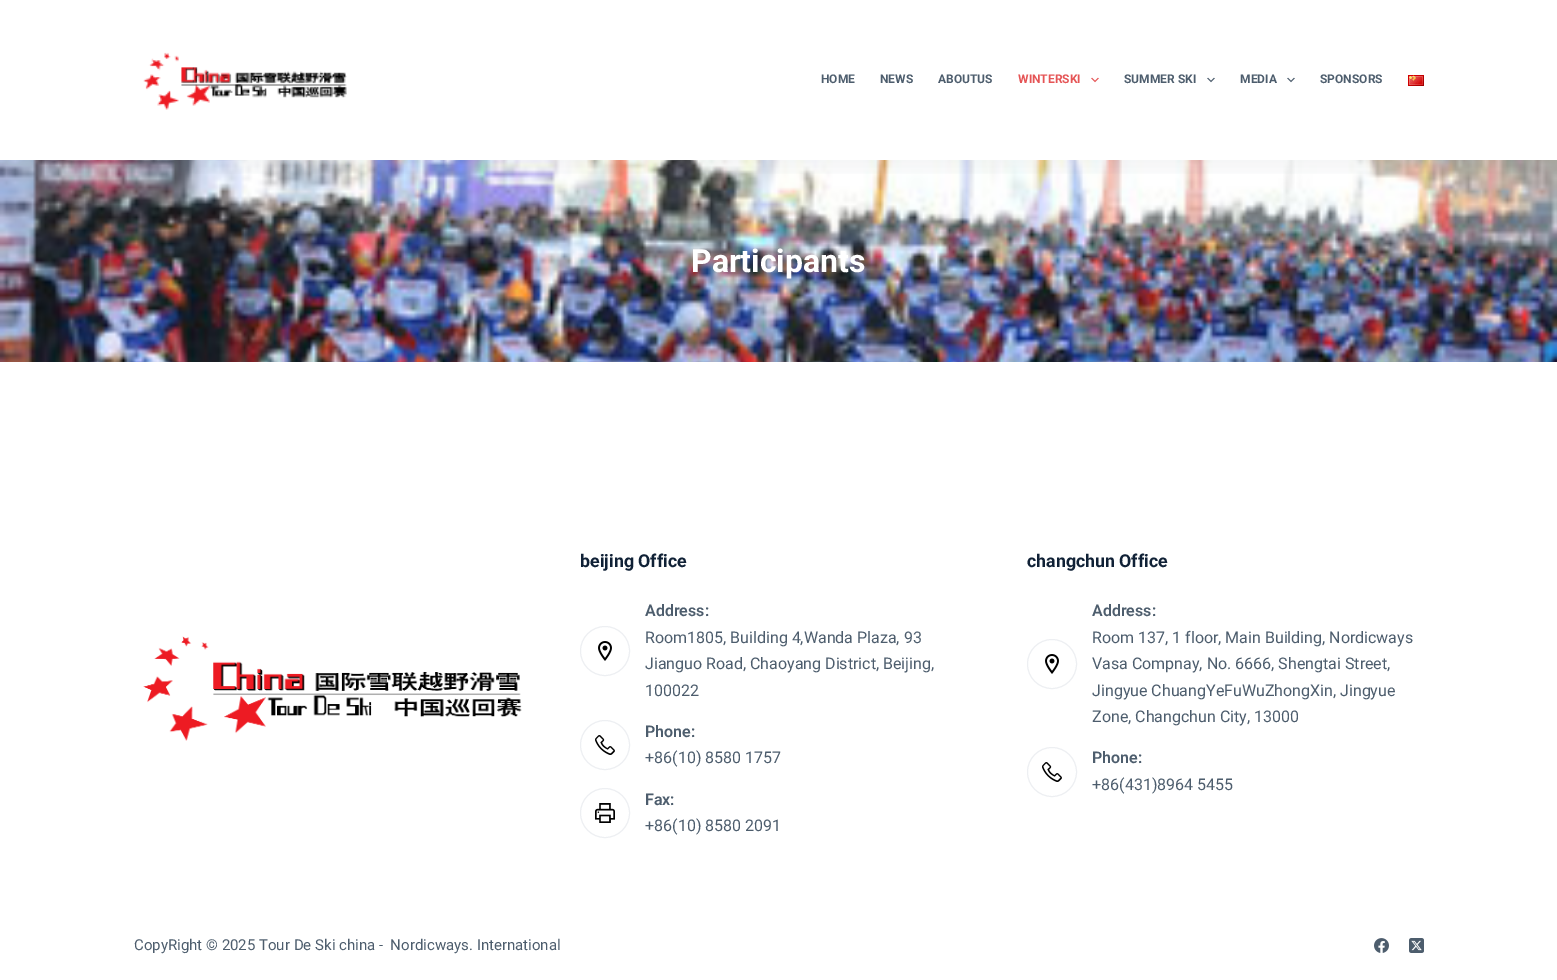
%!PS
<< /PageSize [1557 980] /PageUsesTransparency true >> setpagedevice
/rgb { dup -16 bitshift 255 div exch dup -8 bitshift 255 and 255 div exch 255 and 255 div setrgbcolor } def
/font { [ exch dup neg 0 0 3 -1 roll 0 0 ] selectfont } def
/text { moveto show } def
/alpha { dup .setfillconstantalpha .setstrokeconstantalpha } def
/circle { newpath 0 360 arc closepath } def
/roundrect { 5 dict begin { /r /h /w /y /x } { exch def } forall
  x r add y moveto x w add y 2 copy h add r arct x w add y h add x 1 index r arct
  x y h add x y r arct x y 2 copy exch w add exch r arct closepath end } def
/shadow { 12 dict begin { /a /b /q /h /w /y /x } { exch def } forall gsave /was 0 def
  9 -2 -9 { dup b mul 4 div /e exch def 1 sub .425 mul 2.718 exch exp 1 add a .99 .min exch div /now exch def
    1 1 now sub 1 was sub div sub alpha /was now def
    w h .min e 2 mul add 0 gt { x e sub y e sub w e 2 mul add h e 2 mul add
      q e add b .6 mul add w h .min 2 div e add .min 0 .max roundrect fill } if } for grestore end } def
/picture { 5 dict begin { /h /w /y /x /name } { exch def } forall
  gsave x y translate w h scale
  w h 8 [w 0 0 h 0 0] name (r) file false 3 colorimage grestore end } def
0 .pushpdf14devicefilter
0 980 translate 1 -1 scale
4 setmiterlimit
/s1 { /Roboto-Bold 12 font 16#4D5D6D rgb } def
/s2 { /Roboto-Bold 12 font 16#E55556 rgb } def
/s3 { /Roboto-Bold 32 font 16#FFFFFF rgb } def
/s4 { /Roboto-Bold 17.75 font 16#102136 rgb } def
/s5 { /Roboto-SemiBold 16 font 16#4D5D6D rgb } def
/s6 { /Roboto-Regular 16 font 16#4D5D6D rgb } def
/s7 { /Roboto-Regular 15 font 16#4D5D6D rgb } def
16#FFFFFF rgb
0 0 1557 980 rectfill
(pic5.raw) 0 160 1557 202 picture
gsave
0 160 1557 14 rectclip
16#2B3D50 rgb
0 10 1557 160 0 10 0.06 shadow
grestore
(pic1.raw) 143 52 204 58 picture
s1
(HOME) 821 83 text
(NEWS) 880 83 text
(ABOUTUS) 938 83 text
s2
(WINTERSKI) 1018 83 text
(pic2.raw) 1091 77 8 6 picture
s1
(SUMMER SKI) 1124 83 text
(pic3.raw) 1207 77 8 6 picture
(MEDIA) 1240 83 text
(pic3.raw) 1287 77 8 6 picture
(SPONSORS) 1320 83 text
(pic4.raw) 1408 75 16 11 picture
s3
(Participants) 691 272 text
(pic6.raw) 143 636 379 105 picture
s4
(beijing Office) 580 567 text
16#EDEFF2 rgb
605 651 24.5 circle stroke
(pic7.raw) 598 641 14 20 picture
s5
(Address:) 645 616 text
s6
(Room1805, Building 4,Wanda Plaza, 93) 645 643 text
(Jianguo Road, Chaoyang District, Beijing,) 645 669 text
(100022) 645 696 text
16#EDEFF2 rgb
605 745 24.5 circle stroke
(pic8.raw) 595 735 20 20 picture
s5
(Phone:) 645 737 text
s6
(+86\(10\) 8580 1757) 645 763 text
16#EDEFF2 rgb
605 813 24.5 circle stroke
(pic9.raw) 595 803 20 20 picture
s5
(Fax:) 645 805 text
s6
(+86\(10\) 8580 2091) 645 831 text
s4
(changchun Office) 1027 567 text
16#EDEFF2 rgb
1052 664 24.5 circle stroke
(pic7.raw) 1045 654 14 20 picture
s5
(Address:) 1092 616 text
s6
(Room 137, 1 floor, Main Building, Nordicways) 1092 643 text
(Vasa Compnay, No. 6666, Shengtai Street,) 1092 669 text
(Jingyue ChuangYeFuWuZhongXin, Jingyue) 1092 696 text
(Zone, Changchun City, 13000) 1092 722 text
16#EDEFF2 rgb
1052 772 24.5 circle stroke
(pic8.raw) 1042 762 20 20 picture
s5
(Phone:) 1092 763 text
s6
(+86\(431\)8964 5455) 1092 790 text
s7
(CopyRight © 2025 Tour De Ski china -  Nordicways. International) 134 950 text
(pic10.raw) 1374 938 15 15 picture
(pic11.raw) 1409 938 15 15 picture
.poppdf14devicefilter showpage
